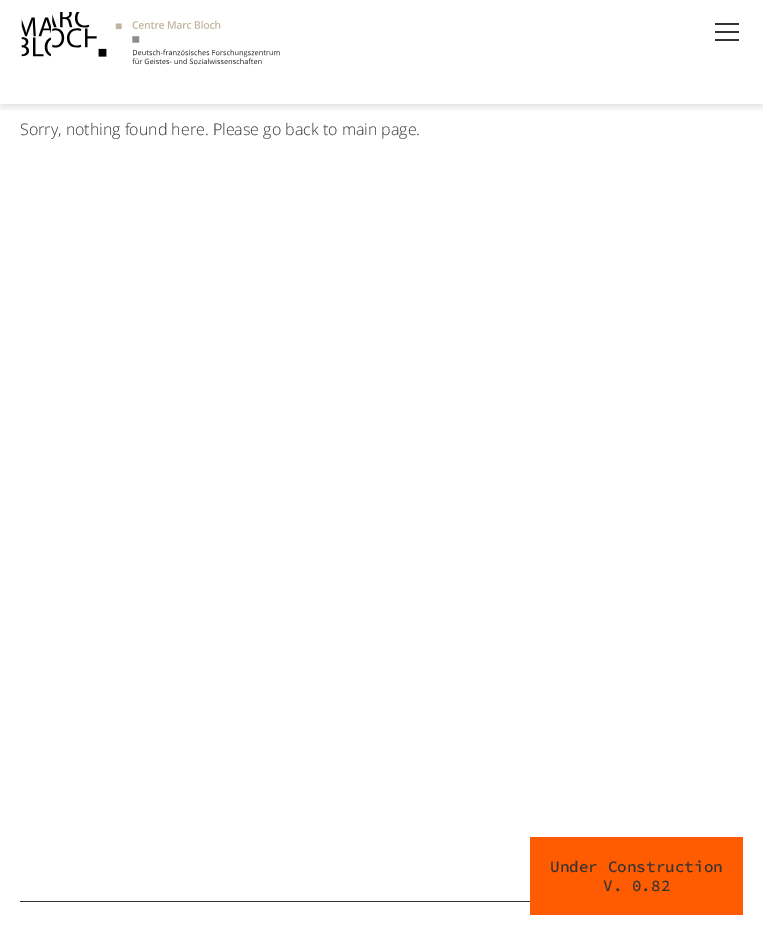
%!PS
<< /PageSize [763 935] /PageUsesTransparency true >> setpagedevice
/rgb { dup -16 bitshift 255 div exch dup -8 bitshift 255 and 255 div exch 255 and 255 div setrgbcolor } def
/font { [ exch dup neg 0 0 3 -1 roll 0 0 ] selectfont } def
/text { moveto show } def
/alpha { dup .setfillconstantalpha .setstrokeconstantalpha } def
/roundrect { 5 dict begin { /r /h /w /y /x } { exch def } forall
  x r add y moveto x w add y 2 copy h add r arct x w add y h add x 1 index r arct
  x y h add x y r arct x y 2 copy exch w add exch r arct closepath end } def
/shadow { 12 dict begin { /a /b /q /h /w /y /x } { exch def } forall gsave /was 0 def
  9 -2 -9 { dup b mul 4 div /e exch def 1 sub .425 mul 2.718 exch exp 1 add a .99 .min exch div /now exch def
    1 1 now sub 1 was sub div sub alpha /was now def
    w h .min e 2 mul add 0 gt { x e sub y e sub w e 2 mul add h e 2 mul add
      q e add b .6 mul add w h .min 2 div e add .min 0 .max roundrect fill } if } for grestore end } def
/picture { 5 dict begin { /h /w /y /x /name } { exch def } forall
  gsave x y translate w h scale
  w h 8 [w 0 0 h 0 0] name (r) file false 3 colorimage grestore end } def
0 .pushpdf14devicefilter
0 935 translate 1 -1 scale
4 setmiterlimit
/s1 { /OpenSans-Light 16 font 16#333333 rgb } def
/s2 { /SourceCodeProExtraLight-Medium 16 font 16#333333 rgb } def
16#FFFFFF rgb
0 0 763 935 rectfill
gsave
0 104 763 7 rectclip
16#000000 rgb
0 4 763 104 0 3 0.1 shadow
grestore
(pic1.raw) 21 12 259 53 picture
16#333333 rgb
715 23 24 2 rectfill
715 31 24 2 rectfill
715 39 24 2 rectfill
s1
(Sorry, nothing found here. Please go back to main page.) 20 135 text
16#FF5B00 rgb
530 837 213 78 rectfill
s2
(Under Construction) 550 872 text
(V. 0.82) 603 891 text
20 901 510 1 rectfill
.poppdf14devicefilter showpage
